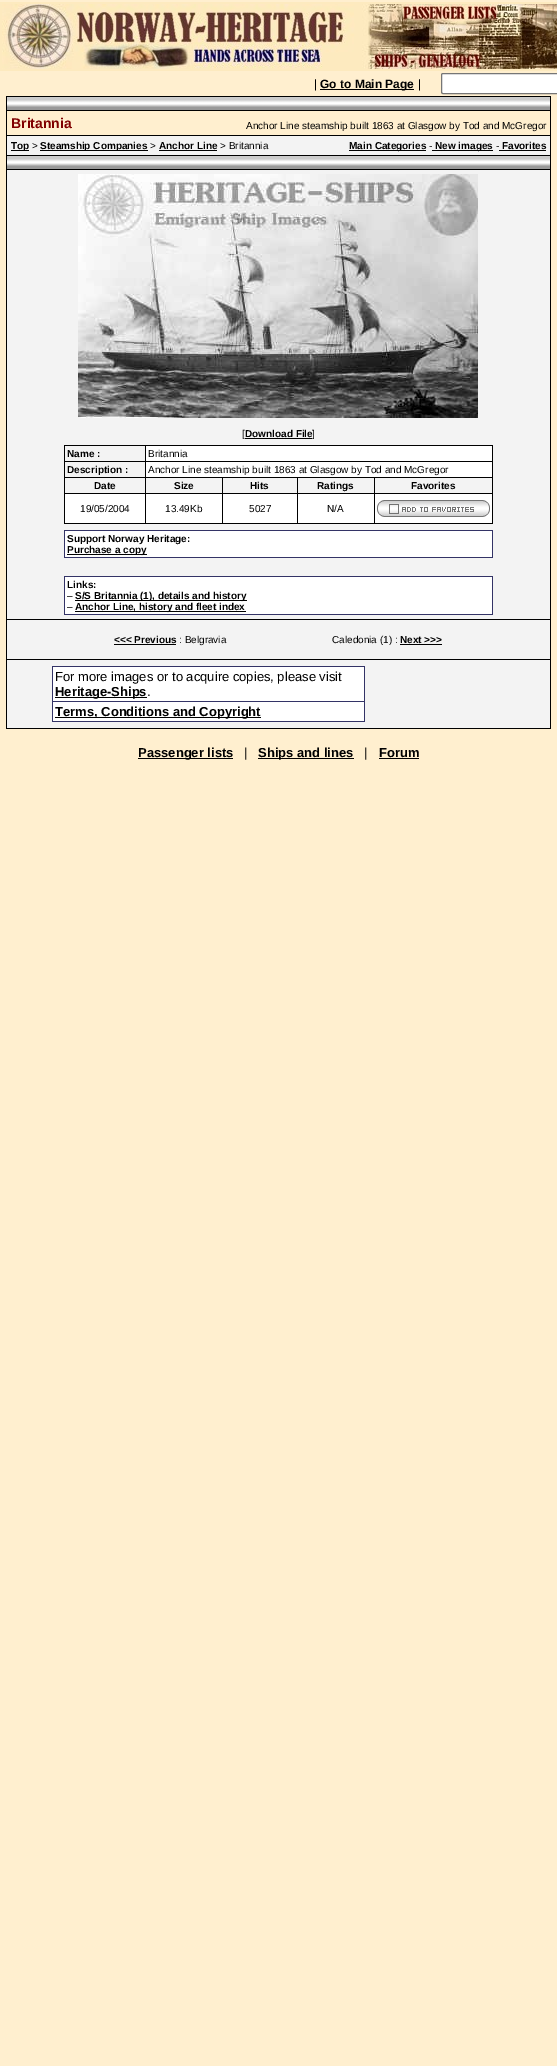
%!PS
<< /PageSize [557 2066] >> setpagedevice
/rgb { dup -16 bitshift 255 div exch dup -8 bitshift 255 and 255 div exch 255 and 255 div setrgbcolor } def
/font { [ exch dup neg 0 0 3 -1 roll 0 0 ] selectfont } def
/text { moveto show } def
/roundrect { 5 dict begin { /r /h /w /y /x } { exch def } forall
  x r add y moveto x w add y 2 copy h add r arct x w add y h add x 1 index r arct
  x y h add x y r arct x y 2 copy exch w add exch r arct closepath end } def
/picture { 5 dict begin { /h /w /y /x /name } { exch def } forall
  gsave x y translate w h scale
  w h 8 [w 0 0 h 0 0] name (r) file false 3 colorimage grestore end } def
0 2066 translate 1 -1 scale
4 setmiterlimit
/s1 { /LiberationSans-Regular 12 font 16#000000 rgb } def
/s2 { /LiberationSans-Bold 12 font 16#000000 rgb } def
/s3 { /LiberationSans-Bold 14 font 16#800000 rgb } def
/s4 { /LiberationSans-Regular 10 font 16#000000 rgb } def
/s5 { /LiberationSans-Bold 10 font 16#000000 rgb } def
/s6 { /LiberationSans-Regular 13 font 16#000000 rgb } def
/s7 { /LiberationSans-Bold 13 font 16#000000 rgb } def
16#FFEFCF rgb
0 0 557 2066 rectfill
16#FDEABF rgb
0 2 557 69 rectfill
(pic1.raw) 2 4 555 65 picture
s1
(|) 314 88 text
320 89 94 1 rectfill
s2
(Go to Main Page) 320 88 text
s1
(|) 418 88 text
16#FFFFFF rgb
441.5 73.5 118 20 1.5 roundrect gsave fill grestore
16#767676 rgb
stroke
16#000000 rgb
6 96 545 633 rectfill
(pic2.raw) 7 97 543 13 picture
16#FFEFCF rgb
7 111 543 24 rectfill
s3
(Britannia) 11 128 text
s4
(Anchor Line steamship built 1863 at Glasgow by Tod and McGregor) 246 129 text
16#F3F3F3 rgb
7 136 543 19 rectfill
16#000000 rgb
11 150 18 1 rectfill
s5
(Top) 11 149 text
s4
(>) 32 149 text
40 150 108 1 rectfill
s5
(Steamship Companies) 40 149 text
s4
(>) 150 149 text
s5
(Anchor Line) 159 149 text
159 150 58 1 rectfill
s4
(> Britannia) 220 149 text
349 150 77 1 rectfill
s5
(Main Categories) 349 149 text
s4
(-) 429 149 text
432 150 61 1 rectfill
s5
(New images) 435 149 text
s4
(-) 496 149 text
s5
(Favorites) 502 149 text
499 150 47 1 rectfill
(pic2.raw) 7 156 543 13 picture
16#F3F3F3 rgb
7 170 543 449 rectfill
(pic3.raw) 78 174 400 244 picture
s4
([) 242 437 text
s5
(Download File) 245 437 text
245 438 67 1 rectfill
s4
(]) 312 437 text
64 445 429 79 rectfill
16#F3F3F3 rgb
65 446 80 15 rectfill
s5
(Name :) 67 457 text
16#FFFFFF rgb
146 446 346 15 rectfill
s4
(Britannia) 148 457 text
16#F3F3F3 rgb
65 462 80 15 rectfill
s5
(Description :) 67 473 text
16#FFFFFF rgb
146 462 346 15 rectfill
s4
(Anchor Line steamship built 1863 at Glasgow by Tod and McGregor) 148 473 text
16#F3F3F3 rgb
65 478 80 15 rectfill
s5
(Date) 94 489 text
16#F3F3F3 rgb
146 478 76 15 rectfill
s5
(Size) 174 489 text
16#F3F3F3 rgb
223 478 74 15 rectfill
s5
(Hits) 250 489 text
16#F3F3F3 rgb
298 478 76 15 rectfill
s5
(Ratings) 317 489 text
16#F3F3F3 rgb
375 478 117 15 rectfill
s5
(Favorites) 411 489 text
16#FFFFFF rgb
65 494 80 29 rectfill
s4
(19/05/2004) 80 512 text
16#FFFFFF rgb
146 494 76 29 rectfill
s4
(13.49Kb) 165 512 text
16#FFFFFF rgb
223 494 74 29 rectfill
s4
(5027) 249 512 text
16#FFFFFF rgb
298 494 76 29 rectfill
s4
(N/A) 327 512 text
16#FFFFFF rgb
375 494 117 29 rectfill
(pic4.raw) 377 500 113 17 picture
16#333366 rgb
64 530 429 28 rectfill
16#FFFFFF rgb
65 531 427 26 rectfill
s5
(Support Norway Heritage:) 67 542 text
67 554 80 1 rectfill
(Purchase a copy) 67 553 text
16#333366 rgb
64 576 429 39 rectfill
16#FFFFFF rgb
65 577 427 37 rectfill
s5
(Links:) 67 588 text
s4
(–) 67 599 text
75 600 172 1 rectfill
s5
(S/S Britannia \(1\), details and history) 75 599 text
s4
(–) 67 610 text
75 611 171 1 rectfill
s5
(Anchor Line, history and fleet index) 75 610 text
16#F3F3F3 rgb
7 620 543 39 rectfill
s5
(<<< Previous) 114 643 text
114 644 62 1 rectfill
s4
(: Belgravia) 179 643 text
(Caledonia \(1\) :) 332 643 text
s5
(Next >>>) 400 643 text
400 644 42 1 rectfill
16#F3F3F3 rgb
7 660 543 68 rectfill
16#333366 rgb
52 666 313 56 rectfill
16#FFFFFF rgb
53 667 311 34 rectfill
s6
(For more images or to acquire copies, please visit) 55 681 text
55 697 92 1 rectfill
s7
(Heritage-Ships) 55 696 text
s6
(.) 147 696 text
16#FFFFFF rgb
53 702 311 19 rectfill
16#000000 rgb
55 717 206 1 rectfill
s7
(Terms, Conditions and Copyright) 55 716 text
138 758 95 1 rectfill
(Passenger lists) 138 757 text
s6
(|) 244 757 text
258 758 96 1 rectfill
s7
(Ships and lines) 258 757 text
s6
(|) 364 757 text
s7
(Forum) 379 757 text
379 758 40 1 rectfill
showpage
